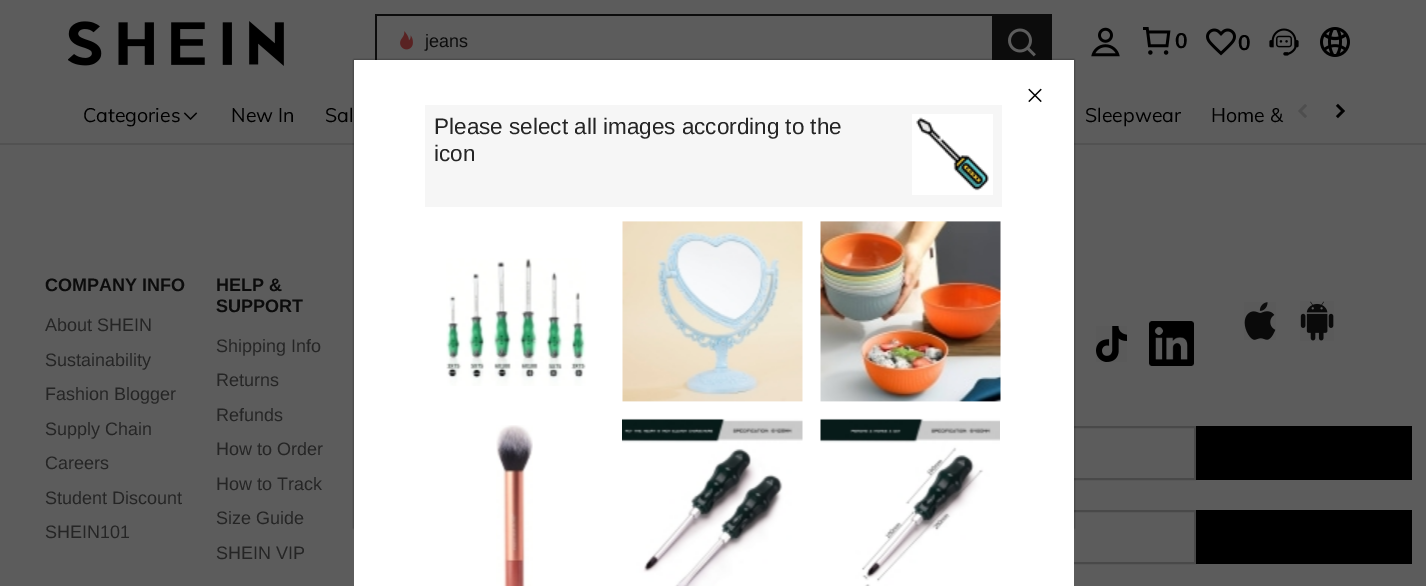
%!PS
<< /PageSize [1426 586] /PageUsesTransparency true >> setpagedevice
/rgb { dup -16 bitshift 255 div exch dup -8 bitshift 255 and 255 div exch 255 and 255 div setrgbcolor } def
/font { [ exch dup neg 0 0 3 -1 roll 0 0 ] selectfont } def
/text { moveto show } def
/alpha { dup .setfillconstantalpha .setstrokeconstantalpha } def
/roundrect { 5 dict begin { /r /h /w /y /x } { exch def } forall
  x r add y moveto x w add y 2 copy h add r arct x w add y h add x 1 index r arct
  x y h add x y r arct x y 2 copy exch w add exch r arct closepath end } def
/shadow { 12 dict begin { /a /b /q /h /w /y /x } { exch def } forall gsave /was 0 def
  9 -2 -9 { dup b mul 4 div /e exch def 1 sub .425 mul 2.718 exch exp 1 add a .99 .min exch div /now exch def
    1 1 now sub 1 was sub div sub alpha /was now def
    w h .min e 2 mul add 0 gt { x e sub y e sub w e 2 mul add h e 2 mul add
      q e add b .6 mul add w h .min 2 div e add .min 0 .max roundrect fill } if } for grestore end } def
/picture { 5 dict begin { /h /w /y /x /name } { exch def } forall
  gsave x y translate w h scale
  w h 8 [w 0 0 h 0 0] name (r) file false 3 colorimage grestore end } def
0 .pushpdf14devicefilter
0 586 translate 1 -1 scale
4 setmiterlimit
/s1 { /LiberationSans-Regular 18 font 16#0C0C0C rgb } def
/s2 { /Muli-Bold 21 font 16#000000 rgb } def
/s3 { /Muli-Regular 19.5 font 16#000000 rgb } def
/s4 { /LiberationSans-Bold 18 font 16#0C0C0C rgb } def
/s5 { /LiberationSans-Regular 18 font 16#252525 rgb } def
/s6 { /LiberationSans-Regular 22.5 font 16#252525 rgb } def
16#5C5C5C rgb
0 0 1426 586 rectfill
(pic1.raw) 68 21 216 45 picture
16#0C0C0C rgb
375 14 617 2 rectfill
375 14 2 46 rectfill
(pic2.raw) 400 31 13 19 picture
s1
(jeans) 425 47 text
992 14 60 46 rectfill
(pic3.raw) 1008 28 28 29 picture
(pic4.raw) 1091 27 29 30 picture
(pic5.raw) 1143 27 28 28 picture
s2
(0) 1175 48 text
(pic6.raw) 1206 28 30 28 picture
(0) 1238 50 text
(pic7.raw) 1269 28 30 28 picture
(pic8.raw) 1320 27 30 30 picture
16#525252 rgb
0 143 1426 2 rectfill
s3
(Categories) 83 122 text
(pic9.raw) 183 112 15 8 picture
(New In) 231 122 text
(Sal) 325 122 text
(Sleepwear) 1085 122 text
(Home &) 1211 122 text
(pic10.raw) 1298 104 9 14 picture
(pic11.raw) 1335 103 10 16 picture
s4
(COMPANY INFO) 45 291 text
s5
(About SHEIN) 45 331 text
(Sustainability) 45 366 text
(Fashion Blogger) 45 400 text
(Supply Chain) 45 435 text
(Careers) 45 469 text
(Student Discount) 45 504 text
(SHEIN101) 45 538 text
s4
(HELP &) 216 291 text
(SUPPORT) 216 312 text
s5
(Shipping Info) 216 352 text
(Returns) 216 386 text
(Refunds) 216 421 text
(How to Order) 216 455 text
(How to Track) 216 490 text
(Size Guide) 216 524 text
(SHEIN VIP) 216 559 text
(pic12.raw) 1096 326 31 36 picture
(pic13.raw) 1149 321 45 45 picture
(pic14.raw) 1244 302 32 38 picture
(pic15.raw) 1300 301 34 40 picture
16#494949 rgb
2 setlinewidth
730 427 465 52 rectstroke
16#000000 rgb
1196 426 216 54 rectfill
16#494949 rgb
850 511 345 52 rectstroke
16#000000 rgb
1196 510 216 54 rectfill
354 60 720 468 0 1 0.3 shadow
354 60 720 468 0 1 0.3 shadow
16#FFFFFF rgb
354 60 720 526 rectfill
(pic16.raw) 1028 88 14 15 picture
16#F6F6F6 rgb
425 105 577 102 rectfill
s6
(Please select all images according to the) 434 134 text
(icon) 434 161 text
16#FFFFFF rgb
912 114 81 81 rectfill
(pic17.raw) 916 117 73 74 picture
(pic18.raw) 446 258 140 128 picture
(pic19.raw) 622 221 181 181 picture
(pic20.raw) 820 221 181 181 picture
(pic21.raw) 496 425 37 161 picture
(pic22.raw) 622 418 181 168 picture
(pic23.raw) 820 418 180 168 picture
.poppdf14devicefilter showpage
